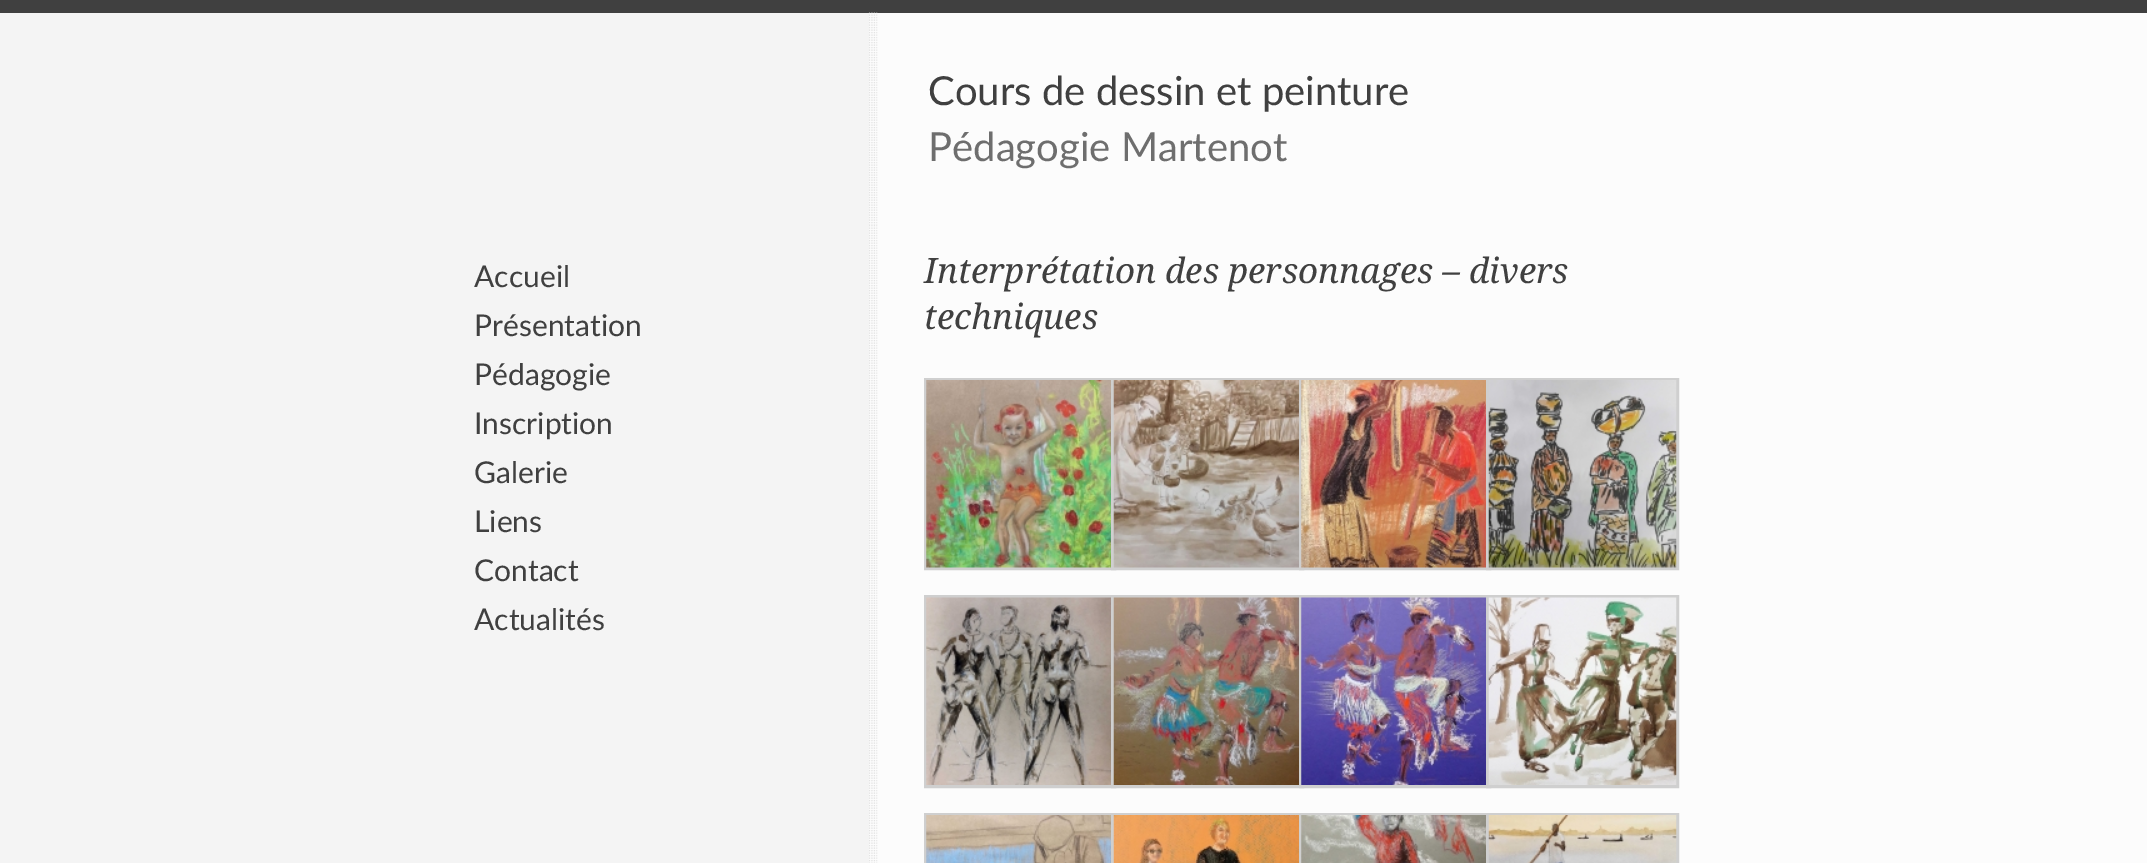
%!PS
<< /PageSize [2147 863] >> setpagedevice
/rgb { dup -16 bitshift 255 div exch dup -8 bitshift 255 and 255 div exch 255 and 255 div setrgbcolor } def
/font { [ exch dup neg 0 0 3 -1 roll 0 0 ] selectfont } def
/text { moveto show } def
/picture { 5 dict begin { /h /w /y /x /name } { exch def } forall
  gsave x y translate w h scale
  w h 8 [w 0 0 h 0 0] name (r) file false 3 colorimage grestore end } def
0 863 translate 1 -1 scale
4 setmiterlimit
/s1 { /Lato-Regular 40 font 16#404040 rgb } def
/s2 { /Lato-Regular 40 font 16#6E6E6E rgb } def
/s3 { /Lato-Regular 30 font 16#404040 rgb } def
/s4 { /DroidSerif-Italic 35 font 16#404040 rgb } def
16#F4F4F4 rgb
0 0 2147 863 rectfill
16#404040 rgb
0 0 2147 13 rectfill
16#FCFCFC rgb
869 13 1278 212 rectfill
(pic1.raw) 868 12 10 213 picture
s1
(Cours de dessin et peinture) 928 105 text
s2
(Pédagogie Martenot) 928 161 text
16#FCFCFC rgb
869 225 1278 638 rectfill
(pic2.raw) 869 225 9 638 picture
s3
(Accueil) 474 287 text
(Présentation) 474 336 text
(Pédagogie) 474 385 text
(Inscription) 474 434 text
(Galerie) 474 483 text
(Liens) 474 532 text
(Contact) 474 581 text
(Actualités) 474 630 text
s4
(Interprétation des personnages – divers) 924 283 text
(techniques) 924 329 text
16#CFCFCF rgb
3 setlinewidth
925.5 379.5 189 189 rectstroke
(pic3.raw) 926 380 185 188 picture
1112.5 379.5 190 189 rectstroke
(pic4.raw) 1113 380 186 188 picture
1300.5 379.5 189 189 rectstroke
(pic5.raw) 1301 380 185 188 picture
1487.5 379.5 190 189 rectstroke
(pic6.raw) 1488 380 189 188 picture
925.5 596.5 189 190 rectstroke
(pic7.raw) 926 597 185 188 picture
1112.5 596.5 190 190 rectstroke
(pic8.raw) 1113 597 186 188 picture
1300.5 596.5 189 190 rectstroke
(pic9.raw) 1301 597 185 188 picture
1487.5 596.5 190 190 rectstroke
(pic10.raw) 1488 597 189 188 picture
925.5 814.5 189 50 rectstroke
(pic11.raw) 926 815 185 48 picture
1112.5 814.5 190 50 rectstroke
(pic12.raw) 1113 815 186 48 picture
1300.5 814.5 189 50 rectstroke
(pic13.raw) 1301 815 185 48 picture
1487.5 814.5 190 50 rectstroke
(pic14.raw) 1488 815 189 48 picture
showpage
